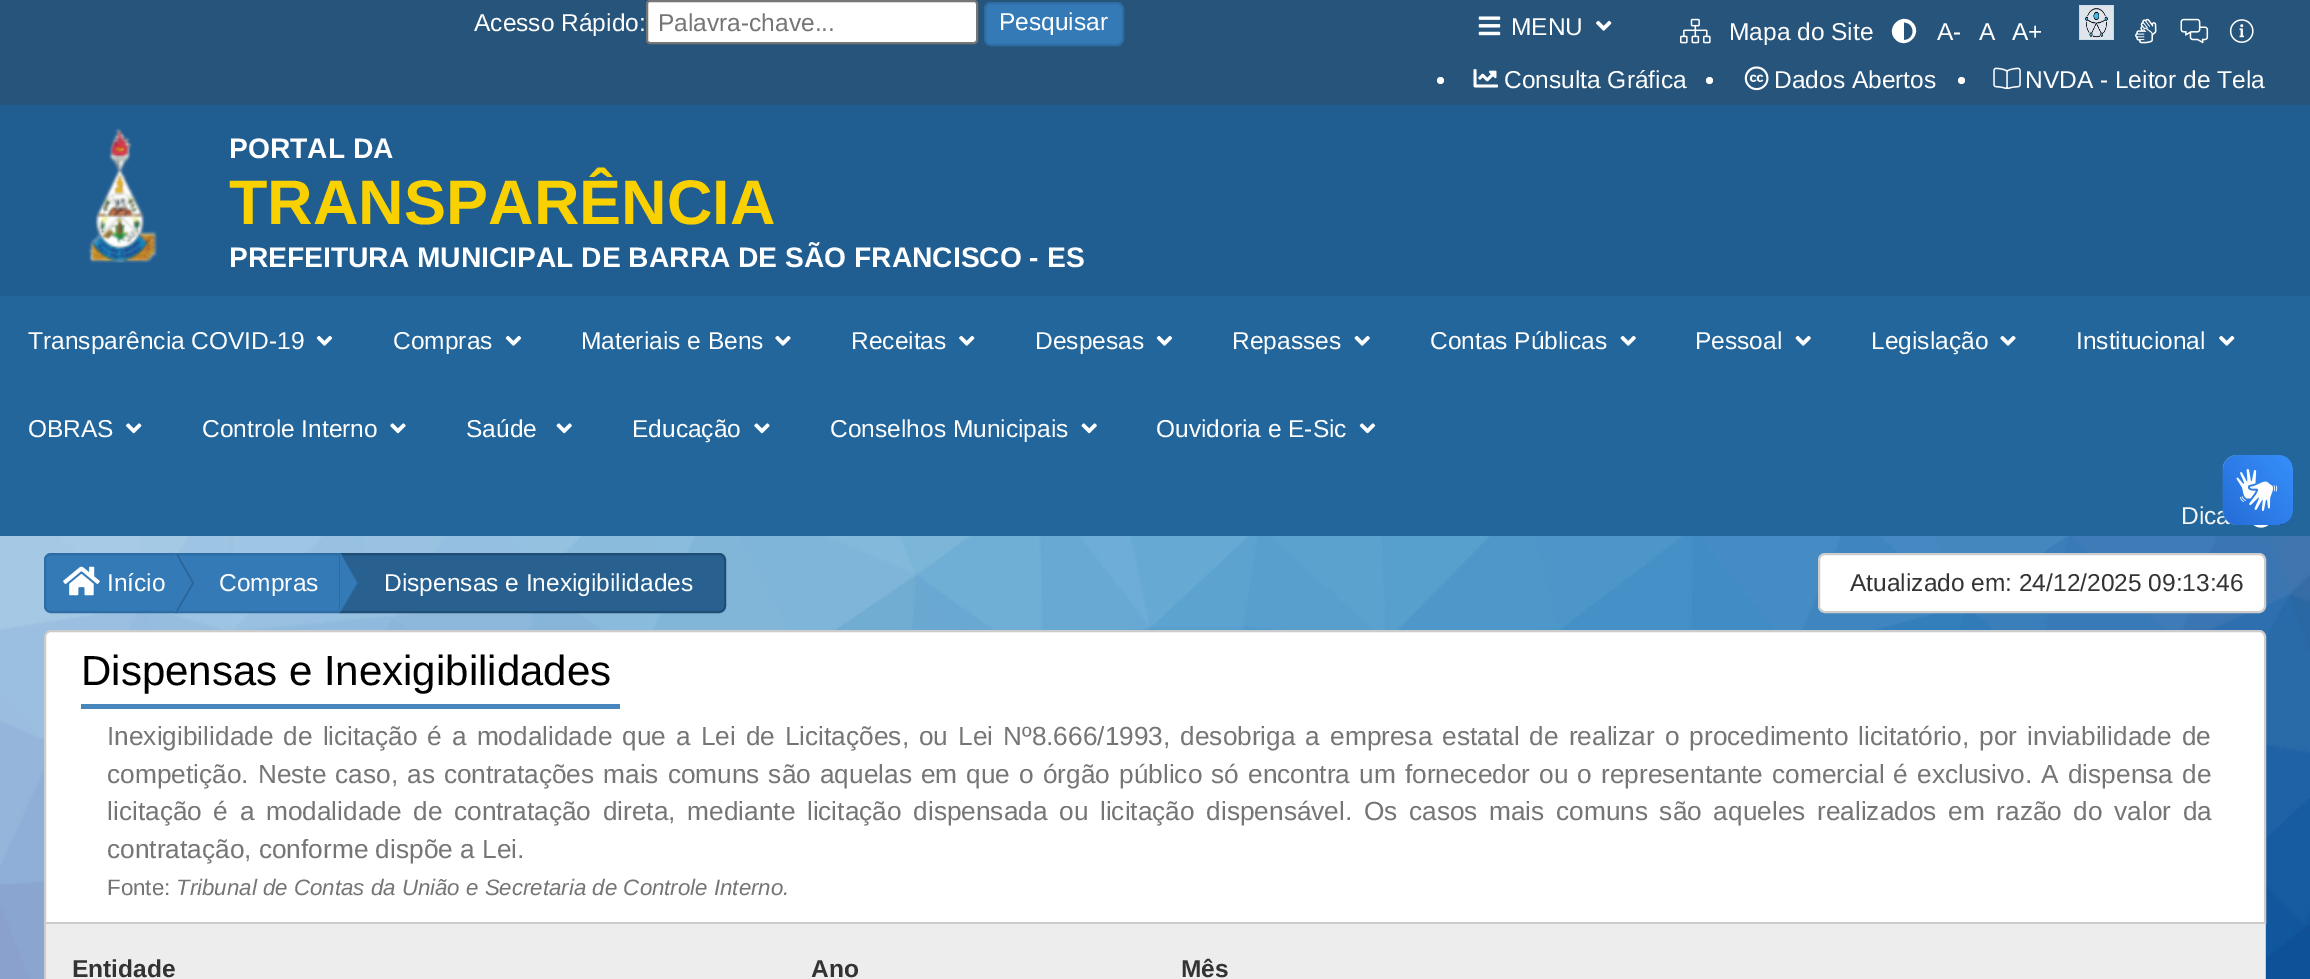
%!PS
<< /PageSize [2310 979] >> setpagedevice
/rgb { dup -16 bitshift 255 div exch dup -8 bitshift 255 and 255 div exch 255 and 255 div setrgbcolor } def
/font { [ exch dup neg 0 0 3 -1 roll 0 0 ] selectfont } def
/text { moveto show } def
/circle { newpath 0 360 arc closepath } def
/roundrect { 5 dict begin { /r /h /w /y /x } { exch def } forall
  x r add y moveto x w add y 2 copy h add r arct x w add y h add x 1 index r arct
  x y h add x y r arct x y 2 copy exch w add exch r arct closepath end } def
/picture { 5 dict begin { /h /w /y /x /name } { exch def } forall
  gsave x y translate w h scale
  w h 8 [w 0 0 h 0 0] name (r) file false 3 colorimage grestore end } def
0 979 translate 1 -1 scale
4 setmiterlimit
/s1 { /LiberationSans-Regular 24.5 font 16#FFFFFF rgb } def
/s2 { /LiberationSans-Regular 24.5 font 16#757575 rgb } def
/s3 { /LiberationSans-Bold 28.2 font 16#FFFFFF rgb } def
/s4 { /LiberationSans-Bold 63 font 16#FAD100 rgb } def
/s5 { /LiberationSans-Regular 24.5 font 16#F5F5F5 rgb } def
/s6 { /LiberationSans-Regular 24.5 font 16#333333 rgb } def
/s7 { /LiberationSans-Regular 42 font 16#000000 rgb } def
/s8 { /LiberationSans-Regular 26.25 font 16#757575 rgb } def
/s9 { /LiberationSans-Regular 22.3 font 16#757575 rgb } def
/s10 { /LiberationSans-Italic 22.3 font 16#757575 rgb } def
/s11 { /LiberationSans-Bold 24.5 font 16#333333 rgb } def
16#FFFFFF rgb
0 0 2310 979 rectfill
16#26547B rgb
0 0 2310 105 rectfill
s1
(Acesso Rápido:) 474 31 text
647 1 330 42 3 roundrect gsave fill grestore
16#767676 rgb
2 setlinewidth
stroke
s2
(Palavra-chave...) 658 31 text
16#337AB7 rgb
985 3 138 42 6 roundrect gsave fill grestore
16#2E6DA4 rgb
stroke
s1
(Pesquisar) 999 30 text
(pic1.raw) 1478 16 23 20 picture
(MENU) 1511 35 text
(pic2.raw) 1596 20 16 11 picture
(pic3.raw) 1680 18 31 26 picture
(Mapa do Site) 1729 40 text
1895.5 39.5 moveto 1884.5 28.5 1901.5 11.5 1912.5 22.5 curveto 1923.5 33.5 1906.5 50.5 1895.5 39.5 curveto closepath 1904 40 moveto 1915.5 40 1915.5 22.5 1904 22.5 curveto closepath fill
(A-) 1937 40 text
(A) 1979 40 text
(A+) 2012 40 text
(pic4.raw) 2079 5 35 35 picture
(pic5.raw) 2135 18 22 26 picture
(pic6.raw) 2180 18 29 26 picture
(pic7.raw) 2229 19 25 24 picture
1440.5 80.5 3.5 circle fill
(pic8.raw) 1473 69 25 19 picture
(Consulta Gráfica) 1504 88 text
1709.5 80.5 3.5 circle fill
(pic9.raw) 1744 66 25 25 picture
(Dados Abertos) 1774 88 text
1961.5 80.5 3.5 circle fill
(pic10.raw) 1993 67 28 22 picture
(NVDA - Leitor de Tela) 2025 88 text
16#205D91 rgb
0 105 2310 191 rectfill
(pic11.raw) 88 128 70 135 picture
s3
(PORTAL DA) 229 158 text
s4
(TRANSPARÊNCIA) 229 224 text
s3
(PREFEITURA MUNICIPAL DE BARRA DE SÃO FRANCISCO - ES) 229 267 text
16#23669C rgb
0 296 2310 240 rectfill
s1
(Transparência COVID-19) 28 349 text
(pic12.raw) 316 335 17 11 picture
(Compras) 393 349 text
(pic12.raw) 505 335 17 11 picture
(Materiais e Bens) 581 349 text
(pic13.raw) 775 335 16 11 picture
(Receitas) 851 349 text
(pic14.raw) 959 335 16 11 picture
(Despesas) 1035 349 text
(pic12.raw) 1156 335 17 11 picture
(Repasses) 1232 349 text
(pic15.raw) 1354 335 16 11 picture
(Contas Públicas) 1430 349 text
(pic15.raw) 1620 335 16 11 picture
(Pessoal) 1695 349 text
(pic15.raw) 1795 335 16 11 picture
(Legislação) 1871 349 text
(pic13.raw) 2000 335 16 11 picture
(Institucional) 2076 349 text
(pic14.raw) 2219 335 16 11 picture
(OBRAS) 28 437 text
(pic16.raw) 126 423 16 11 picture
(Controle Interno) 202 437 text
(pic17.raw) 390 423 16 11 picture
(Saúde) 466 437 text
(pic18.raw) 556 423 16 11 picture
(Educação) 632 437 text
(pic17.raw) 754 423 16 11 picture
(Conselhos Municipais) 830 437 text
(pic18.raw) 1081 423 16 11 picture
(Ouvidoria e E-Sic) 1156 437 text
(pic19.raw) 1359 423 17 11 picture
s5
(Dica) 2181 524 text
(pic20.raw) 2253 525 16 3 picture
(pic24.raw) 0 536 2310 443 picture
16#337AB7 rgb
51 554 moveto 176 554 lineto 176 612 lineto 51 612 lineto 47.5 612 45 609.5 45 606 curveto 45 560 lineto 45 556.5 47.5 554 51 554 curveto closepath gsave fill grestore
16#2E6DA4 rgb
stroke
16#337AB7 rgb
176 554 moveto 340 554 lineto 340 612 lineto 176 612 lineto closepath gsave fill grestore
16#2E6DA4 rgb
stroke
16#2C6496 rgb
177 612 moveto 177 553 lineto 194 583 lineto closepath fill
16#337AB7 rgb
175 612 moveto 175 553 lineto 192 583 lineto closepath fill
(pic21.raw) 63 566 37 30 picture
s1
(Início) 107 591 text
16#286090 rgb
341 554 moveto 719 554 lineto 722.5 554 725 556.5 725 560 curveto 725 606 lineto 725 609.5 722.5 612 719 612 curveto 341 612 lineto closepath gsave fill grestore
16#204D74 rgb
stroke
16#2C6496 rgb
341 612 moveto 341 553 lineto 359 583 lineto closepath fill
16#337AB7 rgb
340 612 moveto 340 553 lineto 357 583 lineto closepath fill
s1
(Compras) 219 591 text
(Dispensas e Inexigibilidades) 384 591 text
1819 554 446 58 6 roundrect gsave fill grestore
16#CCCCCC rgb
stroke
s6
(Atualizado em: 24/12/2025 09:13:46) 1850 591 text
16#FFFFFF rgb
51 631 moveto 2259 631 lineto 2262.5 631 2265 633.5 2265 637 curveto 2265 923 lineto 45 923 lineto 45 637 lineto 45 633.5 47.5 631 51 631 curveto closepath gsave fill grestore
16#CCCCCC rgb
stroke
s7
(Dispensas e Inexigibilidades) 81 685 text
16#4787BE rgb
81 704 539 5 rectfill
/LiberationSans-Regular 26.25 font
16#757575 rgb
107 745 moveto 2.7 0 32 (Inexigibilidade de licitação é a modalidade que a Lei de Licitações, ou Lei Nº8.666/1993, desobriga a empresa estatal de realizar o procedimento licitatório, por inviabilidade de) widthshow
107 783 moveto 1.75 0 32 (competição. Neste caso, as contratações mais comuns são aquelas em que o órgão público só encontra um fornecedor ou o representante comercial é exclusivo. A dispensa de) widthshow
107 820 moveto 4.3 0 32 (licitação é a modalidade de contratação direta, mediante licitação dispensada ou licitação dispensável. Os casos mais comuns são aqueles realizados em razão do valor da) widthshow
(contratação, conforme dispõe a Lei.) 107 858 text
s9
(Fonte:) 107 895 text
s10
(Tribunal de Contas da União e Secretaria de Controle Interno.) 176 895 text
16#CCCCCC rgb
44 924 moveto 2266 924 lineto 2266 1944 lineto 2266 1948 2263 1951 2259 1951 curveto 51 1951 lineto 47 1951 44 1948 44 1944 curveto closepath 46 924 moveto 2264 924 lineto 2264 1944 lineto 2264 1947 2262 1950 2259 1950 curveto 51 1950 lineto 48 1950 46 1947 46 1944 curveto closepath eofill
16#EDEDED rgb
46 924 2219 55 rectfill
s11
(Entidade) 72 977 text
(Ano) 811 977 text
(Mês) 1181 977 text
(pic22.raw) 2222 455 71 70 picture
(pic23.raw) 2223 455 70 70 picture
showpage
